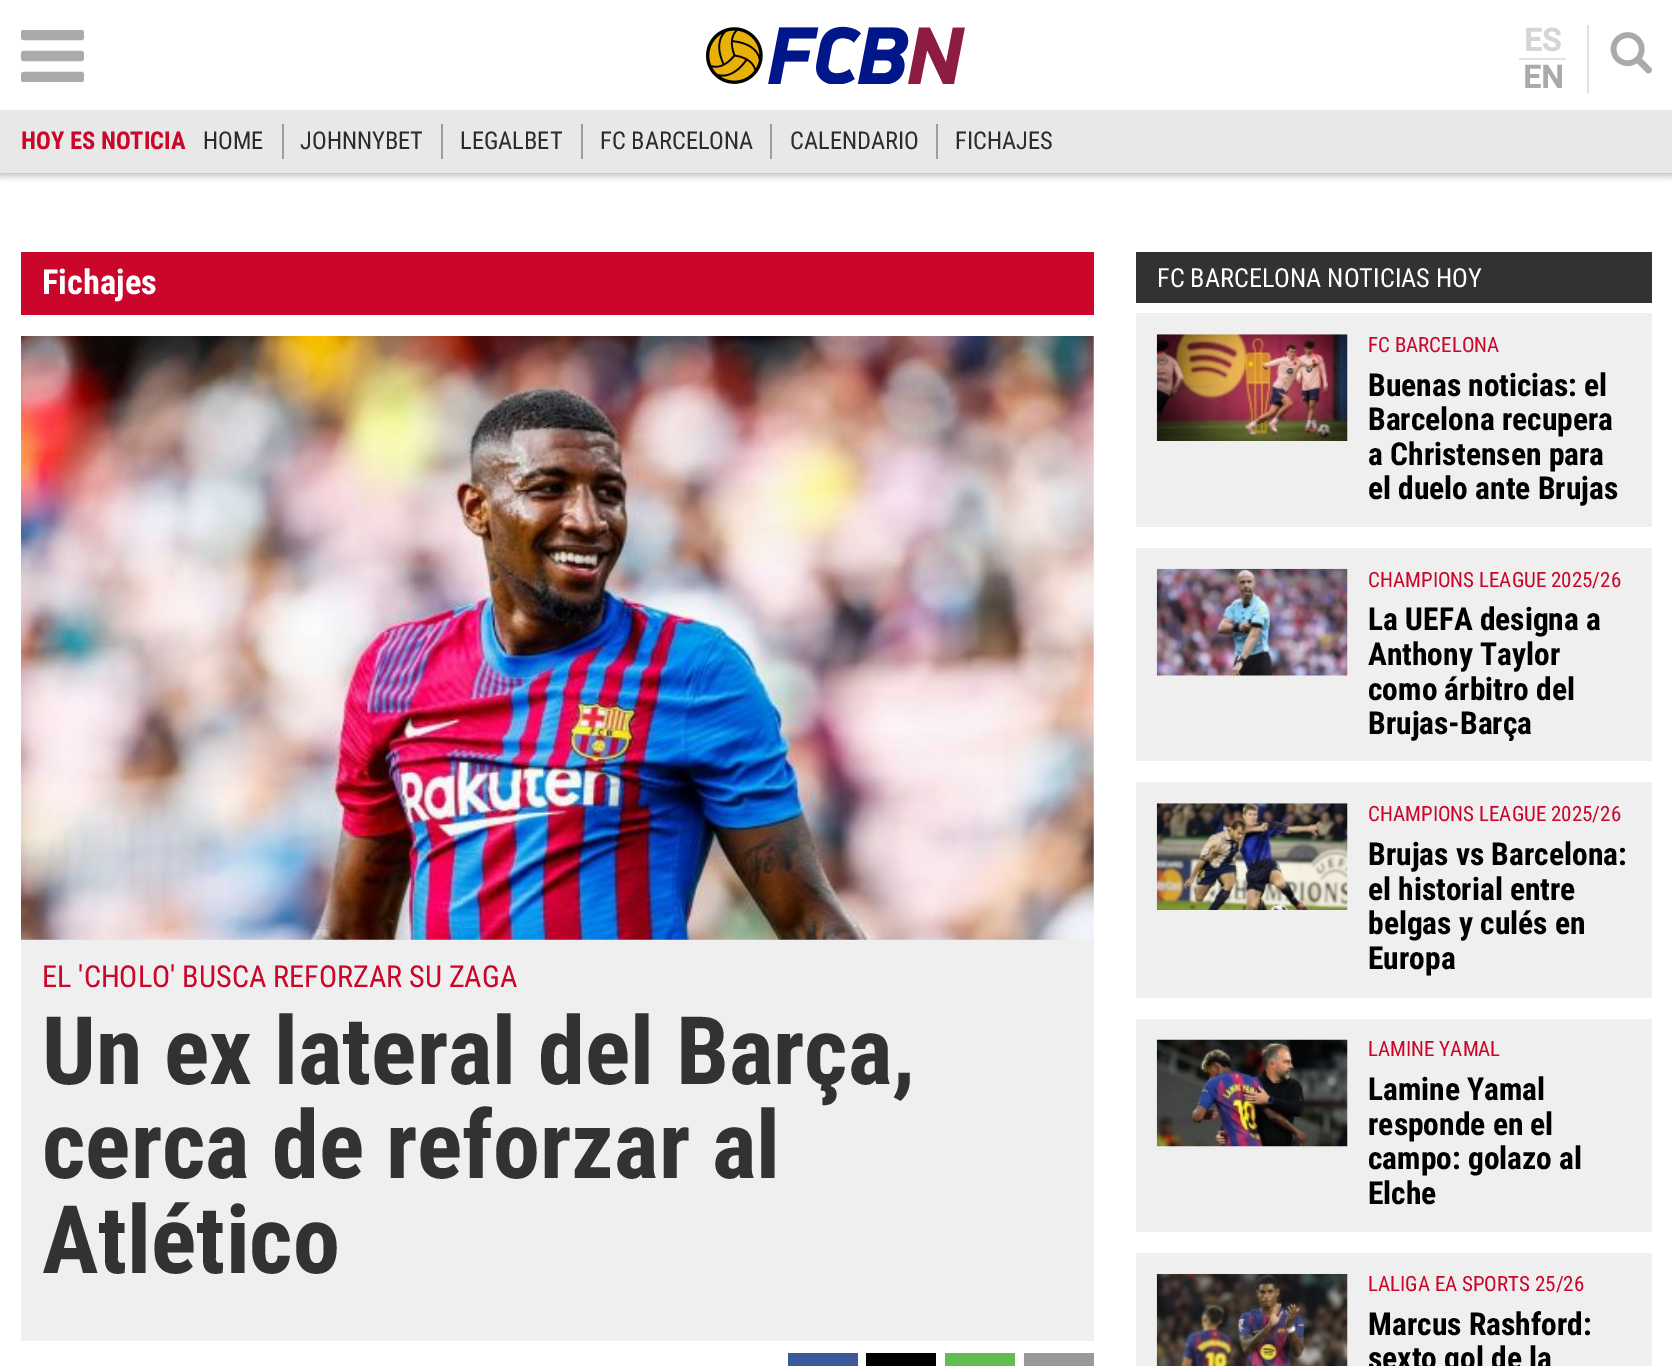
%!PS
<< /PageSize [1672 1366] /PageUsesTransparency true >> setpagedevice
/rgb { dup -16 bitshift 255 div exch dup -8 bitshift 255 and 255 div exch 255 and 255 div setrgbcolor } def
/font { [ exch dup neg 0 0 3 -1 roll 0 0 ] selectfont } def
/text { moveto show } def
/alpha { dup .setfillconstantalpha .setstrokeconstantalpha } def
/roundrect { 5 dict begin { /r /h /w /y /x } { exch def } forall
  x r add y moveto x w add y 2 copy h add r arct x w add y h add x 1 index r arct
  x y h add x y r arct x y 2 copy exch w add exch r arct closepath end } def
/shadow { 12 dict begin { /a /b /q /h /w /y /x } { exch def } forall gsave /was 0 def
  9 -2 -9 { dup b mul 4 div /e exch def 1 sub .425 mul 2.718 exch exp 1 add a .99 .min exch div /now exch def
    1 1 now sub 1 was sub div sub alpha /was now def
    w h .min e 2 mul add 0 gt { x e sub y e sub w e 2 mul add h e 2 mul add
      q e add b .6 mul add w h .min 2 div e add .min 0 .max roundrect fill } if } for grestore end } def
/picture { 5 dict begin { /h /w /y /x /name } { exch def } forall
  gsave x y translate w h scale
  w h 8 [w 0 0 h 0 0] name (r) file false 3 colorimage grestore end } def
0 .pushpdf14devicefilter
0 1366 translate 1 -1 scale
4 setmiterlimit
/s1 { /Roboto-Bold 31.5 font 16#D5D5D5 rgb } def
/s2 { /Roboto-Bold 31.5 font 16#AAAAAA rgb } def
/s3 { /RobotoCondensed-Bold 24.5 font 16#CA062A rgb } def
/s4 { /RobotoCondensed-Regular 24.5 font 16#2C2C2C rgb } def
/s5 { /RobotoCondensed-Bold 34.5 font 16#FFFFFF rgb } def
/s6 { /RobotoCondensed-Regular 30.25 font 16#CA062A rgb } def
/s7 { /RobotoCondensed-Bold 94.5 font 16#323232 rgb } def
/s8 { /RobotoCondensed-Regular 26.25 font 16#FFFFFF rgb } def
/s9 { /RobotoCondensed-Regular 21 font 16#CA062A rgb } def
/s10 { /RobotoCondensed-Bold 31.5 font 16#000000 rgb } def
16#FFFFFF rgb
0 0 1672 1366 rectfill
gsave
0 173 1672 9 rectclip
16#000000 rgb
0 2 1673 173 0 4.5 0.3 shadow
grestore
(pic1.raw) 21 30 63 52 picture
(pic2.raw) 706 26 259 58 picture
16#E2E2E2 rgb
1587 25 2 68 rectfill
s1
(ES) 1524 51 text
16#E2E2E2 rgb
1519 58 47 2 rectfill
s2
(EN) 1523 88 text
(pic3.raw) 1610 32 42 42 picture
16#E8E8E8 rgb
0 110 1672 63 rectfill
s3
(HOY ES NOTICIA) 21 149 text
16#9D9D9D rgb
282 124 2 35 rectfill
s4
(HOME) 203 149 text
16#9D9D9D rgb
441 124 2 35 rectfill
s4
(JOHNNYBET) 300 149 text
16#9D9D9D rgb
581 124 2 35 rectfill
s4
(LEGALBET) 460 149 text
16#9D9D9D rgb
770 124 2 35 rectfill
s4
(FC BARCELONA) 600 149 text
16#9D9D9D rgb
936 124 2 35 rectfill
s4
(CALENDARIO) 790 149 text
(FICHAJES) 955 149 text
16#CA062A rgb
21 252 1073 63 rectfill
s5
(Fichajes) 42 294 text
16#EFEFEF rgb
21 936 1073 405 rectfill
(pic4.raw) 21 336 1073 604 picture
s6
(EL 'CHOLO' BUSCA REFORZAR SU ZAGA) 42 987 text
s7
(Un ex lateral del Barça,) 42 1084 text
(cerca de reforzar al) 42 1178 text
(Atlético) 42 1273 text
16#3B5998 rgb
788 1353 70 13 rectfill
16#000000 rgb
866 1353 70 13 rectfill
16#63BC52 rgb
945 1353 70 13 rectfill
16#999999 rgb
1024 1353 70 13 rectfill
16#323232 rgb
1136 252 516 51 rectfill
s8
(FC BARCELONA NOTICIAS HOY) 1157 287 text
16#EFEFEF rgb
1136 313 516 214 rectfill
(pic5.raw) 1156 334 192 107 picture
s9
(FC BARCELONA) 1368 352 text
s10
(Buenas noticias: el) 1368 396 text
(Barcelona recupera) 1368 430 text
(a Christensen para) 1368 465 text
(el duelo ante Brujas) 1368 499 text
16#EFEFEF rgb
1136 548 516 213 rectfill
(pic6.raw) 1156 568 192 108 picture
s9
(CHAMPIONS LEAGUE 2025/26) 1368 587 text
s10
(La UEFA designa a) 1368 630 text
(Anthony Taylor) 1368 665 text
(como árbitro del) 1368 700 text
(Brujas-Barça) 1368 734 text
16#EFEFEF rgb
1136 782 516 216 rectfill
(pic7.raw) 1156 803 192 107 picture
s9
(CHAMPIONS LEAGUE 2025/26) 1368 821 text
s10
(Brujas vs Barcelona:) 1368 865 text
(el historial entre) 1368 900 text
(belgas y culés en) 1368 934 text
(Europa) 1368 969 text
16#EFEFEF rgb
1136 1019 516 213 rectfill
(pic8.raw) 1156 1039 192 108 picture
s9
(LAMINE YAMAL) 1368 1056 text
s10
(Lamine Yamal) 1368 1100 text
(responde en el) 1368 1135 text
(campo: golazo al) 1368 1169 text
(Elche) 1368 1204 text
16#EFEFEF rgb
1136 1253 516 113 rectfill
(pic9.raw) 1156 1274 192 92 picture
s9
(LALIGA EA SPORTS 25/26) 1368 1291 text
s10
(Marcus Rashford:) 1368 1335 text
(sexto gol de la) 1368 1369 text
.poppdf14devicefilter showpage
